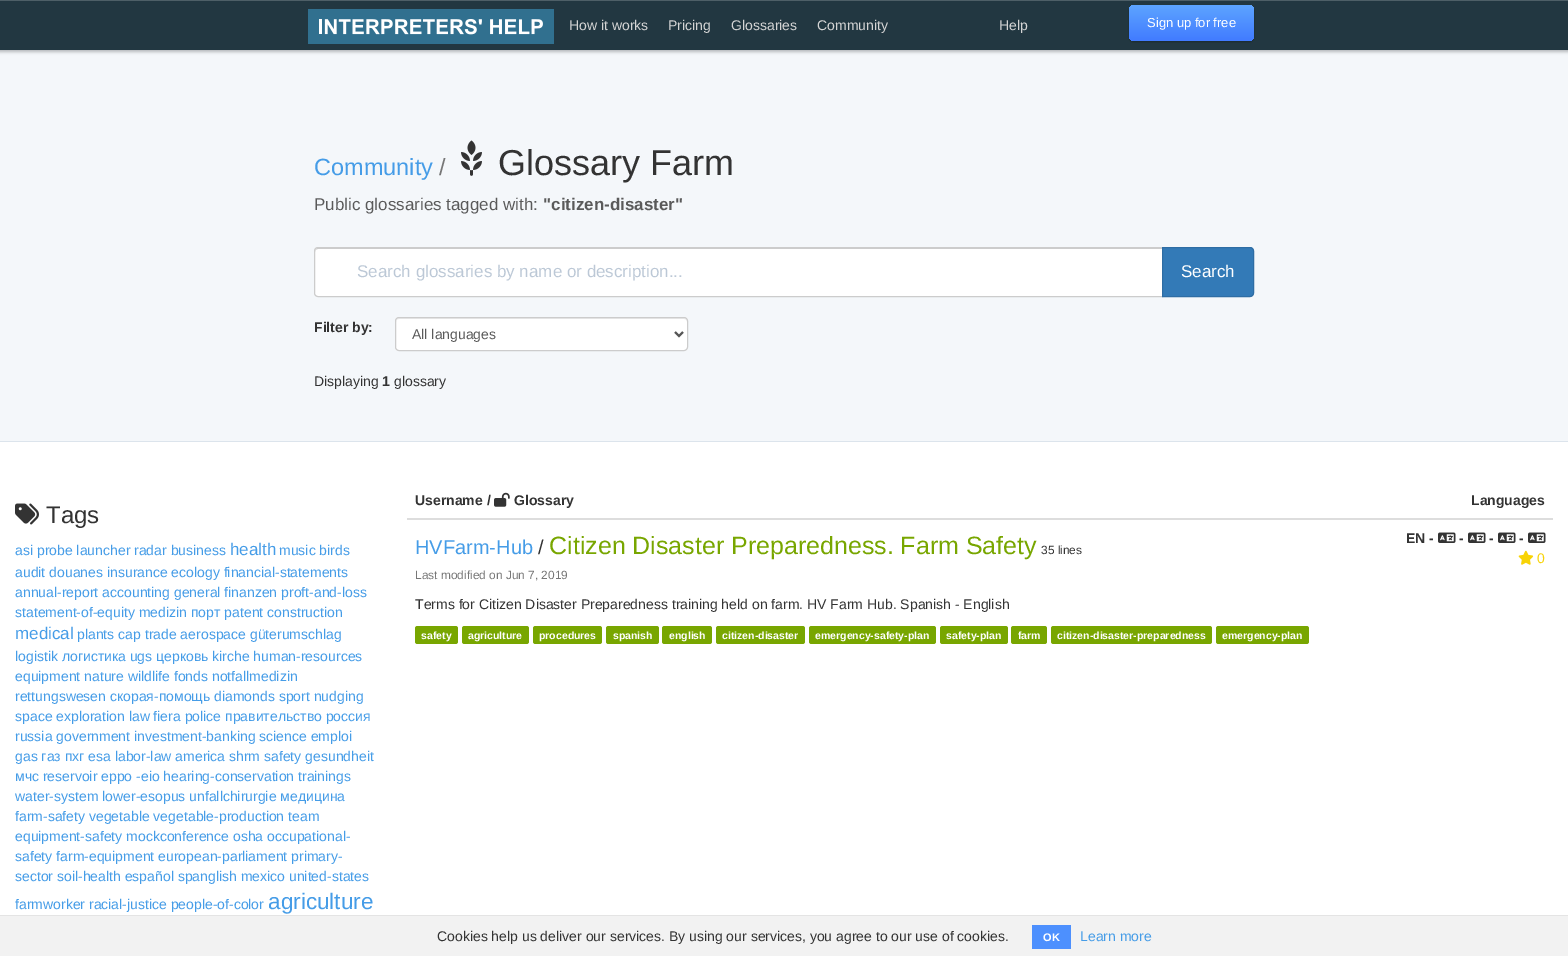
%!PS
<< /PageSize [1568 956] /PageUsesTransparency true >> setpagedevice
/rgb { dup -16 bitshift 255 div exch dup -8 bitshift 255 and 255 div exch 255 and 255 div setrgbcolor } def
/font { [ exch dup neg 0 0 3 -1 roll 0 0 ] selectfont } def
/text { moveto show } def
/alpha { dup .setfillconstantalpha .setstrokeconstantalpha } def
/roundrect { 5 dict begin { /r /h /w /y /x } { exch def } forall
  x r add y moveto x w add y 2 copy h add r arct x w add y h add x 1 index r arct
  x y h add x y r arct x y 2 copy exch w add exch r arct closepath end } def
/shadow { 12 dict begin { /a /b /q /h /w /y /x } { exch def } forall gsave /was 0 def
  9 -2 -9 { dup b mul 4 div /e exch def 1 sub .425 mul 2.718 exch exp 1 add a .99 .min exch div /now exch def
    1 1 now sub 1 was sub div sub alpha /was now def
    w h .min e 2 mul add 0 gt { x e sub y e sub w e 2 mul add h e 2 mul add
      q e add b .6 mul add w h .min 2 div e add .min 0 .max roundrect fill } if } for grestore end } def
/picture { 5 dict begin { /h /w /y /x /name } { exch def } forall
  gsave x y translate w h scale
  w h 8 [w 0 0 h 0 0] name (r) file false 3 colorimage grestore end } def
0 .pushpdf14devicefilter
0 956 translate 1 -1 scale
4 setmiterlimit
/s1 { /LiberationSans-Regular 14 font 16#D5D5D5 rgb } def
/s2 { /LiberationSans-Regular 13 font 16#FFFFFF rgb } def
/s3 { /LiberationSans-Regular 23.5 font 16#459CE7 rgb } def
/s4 { /LiberationSans-Regular 23.5 font 16#777777 rgb } def
/s5 { /LiberationSans-Regular 36 font 16#333333 rgb } def
/s6 { /LiberationSans-Regular 17 font 16#5A5A5A rgb } def
/s7 { /LiberationSans-Bold 17 font 16#5A5A5A rgb } def
/s8 { /LiberationSans-Regular 17 font 16#BCC8D6 rgb } def
/s9 { /LiberationSans-Regular 17 font 16#FFFFFF rgb } def
/s10 { /LiberationSans-Bold 14 font 16#333333 rgb } def
/s11 { /LiberationSans-Regular 14 font 16#5A5A5A rgb } def
/s12 { /LiberationSans-Regular 14 font 16#333333 rgb } def
/s13 { /LiberationSans-Regular 24 font 16#333333 rgb } def
/s14 { /LiberationSans-Regular 14 font 16#459CE7 rgb } def
/s15 { /LiberationSans-Regular 17 font 16#459CE7 rgb } def
/s16 { /LiberationSans-Regular 22.5 font 16#459CE7 rgb } def
/s17 { /LiberationSans-Regular 20 font 16#459CE7 rgb } def
/s18 { /LiberationSans-Regular 20 font 16#333333 rgb } def
/s19 { /LiberationSans-Regular 25 font 16#78A600 rgb } def
/s20 { /LiberationSans-Regular 11.9 font 16#333333 rgb } def
/s21 { /LiberationSans-Regular 11.9 font 16#777777 rgb } def
/s22 { /LiberationSans-Bold 10.5 font 16#FFFFFF rgb } def
/s23 { /LiberationSans-Regular 14 font 16#F8D306 rgb } def
/s24 { /LiberationSans-Bold 11 font 16#FFFFFF rgb } def
16#FFFFFF rgb
0 0 1568 956 rectfill
16#F4F7FA rgb
0 50 1568 391 rectfill
16#2E2E2E rgb
-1 0 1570 52 0 1.5 0.3 shadow
16#223741 rgb
0 1 1568 49 rectfill
16#4E5F67 rgb
0 0 1568 1 rectfill
(pic1.raw) 308 9 246 35 picture
s1
(How it works) 569 30 text
(Pricing) 668 30 text
(Glossaries) 731 30 text
(Community) 817 30 text
(Help) 999 30 text
16#000000 rgb
1129 6 125 36 5 1 0.3 shadow
gsave 1129 5 125 36 5 roundrect clip newpath
<< /ShadingType 2 /ColorSpace /DeviceRGB /Coords [1192 5 1192 41] /Extend [true true] /Function << /FunctionType 2 /Domain [0 1] /C0 [0.365 0.643 1] /C1 [0.255 0.482 1] /N 1 >> >> shfill grestore
s2
(Sign up for free) 1147 27 text
16#DCE4EC rgb
0 441 1568 1 rectfill
s3
(Community) 314 175 text
s4
(/) 439 175 text
(pic2.raw) 461 140 21 36 picture
s5
(Glossary Farm) 498 175 text
s6
(Public glossaries tagged with:) 314 210 text
s7
("citizen-disaster") 543 210 text
16#FFFFFF rgb
318 247 moveto 1163 247 lineto 1163 297 lineto 318 297 lineto 316 297 314 295 314 293 curveto 314 251 lineto 314 249 316 247 318 247 curveto closepath fill
16#CCCCCC rgb
318 249 moveto 1162 249 lineto 1162 248 lineto 318 248 lineto 316 248 315 250 315 252 curveto 315 250 316 249 318 249 curveto closepath fill
318 247.5 moveto 1162.5 247.5 lineto 1162.5 296.5 lineto 318 296.5 lineto 316 296.5 314.5 295 314.5 293 curveto 314.5 251 lineto 314.5 249 316 247.5 318 247.5 curveto closepath stroke
s8
(Search glossaries by name or description...) 357 277 text
16#337AB7 rgb
1162.5 247.5 moveto 1250 247.5 lineto 1252 247.5 1253.5 249 1253.5 251 curveto 1253.5 293 lineto 1253.5 295 1252 296.5 1250 296.5 curveto 1162.5 296.5 lineto closepath gsave fill grestore
16#2E6DA4 rgb
stroke
s9
(Search) 1181 277 text
s10
(Filter by:) 314 332 text
16#FFFFFF rgb
395 317 293 34 4 roundrect fill
16#ECECEC rgb
399 319 moveto 684 319 lineto 686 319 687 320 687 322 curveto 687 320 686 318 684 318 curveto 399 318 lineto 397 318 396 320 396 322 curveto 396 320 397 319 399 319 curveto closepath fill
16#CCCCCC rgb
395.5 317.5 292 33 3.5 roundrect stroke
16#555555 rgb
2 setlinewidth
675 332 moveto 679 336 lineto 683 332 lineto stroke
s11
(All languages) 412 339 text
s12
(Displaying) 314 386 text
s10
(1) 382 386 text
s12
(glossary) 394 386 text
(pic3.raw) 15 503 24 22 picture
s13
(Tags) 46 523 text
s14
(asi probe launcher radar business) 15 555 text
s15
(health) 230 555 text
s14
(music birds) 279 555 text
(audit douanes insurance ecology financial-statements) 15 577 text
(annual-report accounting general finanzen proft-and-loss) 15 597 text
(statement-of-equity medizin порт patent construction) 15 617 text
s15
(medical) 15 639 text
s14
(plants cap trade aerospace güterumschlag) 77 639 text
(logistik логистика ugs церковь kirche human-resources) 15 661 text
(equipment nature wildlife fonds notfallmedizin) 15 681 text
(rettungswesen скорая-помощь diamonds sport nudging) 15 701 text
(space exploration law fiera police правительство россия) 15 721 text
(russia government investment-banking science emploi) 15 741 text
(gas газ пхг esa labor-law america shrm safety gesundheit) 15 761 text
(мчс reservoir eppo -eio hearing-conservation trainings) 15 781 text
(water-system lower-esopus unfallchirurgie медицина) 15 801 text
(farm-safety vegetable vegetable-production team) 15 821 text
(equipment-safety mockconference osha occupational-) 15 841 text
(safety farm-equipment european-parliament primary-) 15 861 text
(sector soil-health español spanglish mexico united-states) 15 881 text
(farmworker racial-justice people-of-color) 15 909 text
s16
(agriculture) 268 909 text
s10
(Username /) 415 505 text
(pic4.raw) 494 492 16 15 picture
(Glossary) 514 505 text
16#DDDDDD rgb
407 518 1146 2 rectfill
s10
(Languages) 1471 505 text
s17
(HVFarm-Hub) 415 554 text
s18
(/) 538 554 text
s19
(Citizen Disaster Preparedness. Farm Safety) 549 554 text
s20
(35 lines) 1041 554 text
s21
(Last modified on Jun 7, 2019) 415 579 text
s12
(Terms for Citizen Disaster Preparedness training held on farm. HV Farm Hub. Spanish - English) 415 609 text
16#78A600 rgb
415 626 43 18 2.5 roundrect fill
s22
(safety) 421 639 text
16#78A600 rgb
462 626 67 18 2.5 roundrect fill
s22
(agriculture) 468 639 text
16#78A600 rgb
533 626 69 18 2.5 roundrect fill
s22
(procedures) 539 639 text
16#78A600 rgb
606 626 53 18 2.5 roundrect fill
s22
(spanish) 613 639 text
16#78A600 rgb
662 626 50 18 2.5 roundrect fill
s22
(english) 669 639 text
16#78A600 rgb
716 626 89 18 2.5 roundrect fill
s22
(citizen-disaster) 722 639 text
16#78A600 rgb
809 626 127 18 2.5 roundrect fill
s22
(emergency-safety-plan) 815 639 text
16#78A600 rgb
940 626 68 18 2.5 roundrect fill
s22
(safety-plan) 946 639 text
16#78A600 rgb
1011 626 36 18 2.5 roundrect fill
s22
(farm) 1018 639 text
16#78A600 rgb
1051 626 161 18 2.5 roundrect fill
s22
(citizen-disaster-preparedness) 1057 639 text
16#78A600 rgb
1216 626 93 18 2.5 roundrect fill
s22
(emergency-plan) 1222 639 text
s10
(EN -) 1406 543 text
(pic5.raw) 1438 532 18 11 picture
(-) 1459 543 text
(pic5.raw) 1468 532 18 11 picture
(-) 1489 543 text
(pic5.raw) 1498 532 18 11 picture
(-) 1519 543 text
(pic5.raw) 1528 532 18 11 picture
(pic6.raw) 1518 550 16 15 picture
s23
(0) 1537 563 text
16#F2F2F2 rgb
0 916 1568 40 rectfill
16#E4E4E4 rgb
0 915 1568 1 rectfill
s12
(Cookies help us deliver our services. By using our services, you agree to our use of cookies.) 437 941 text
16#4D90FE rgb
1032 925 39 24 rectfill
s24
(OK) 1043 941 text
s14
(Learn more) 1080 941 text
.poppdf14devicefilter showpage
